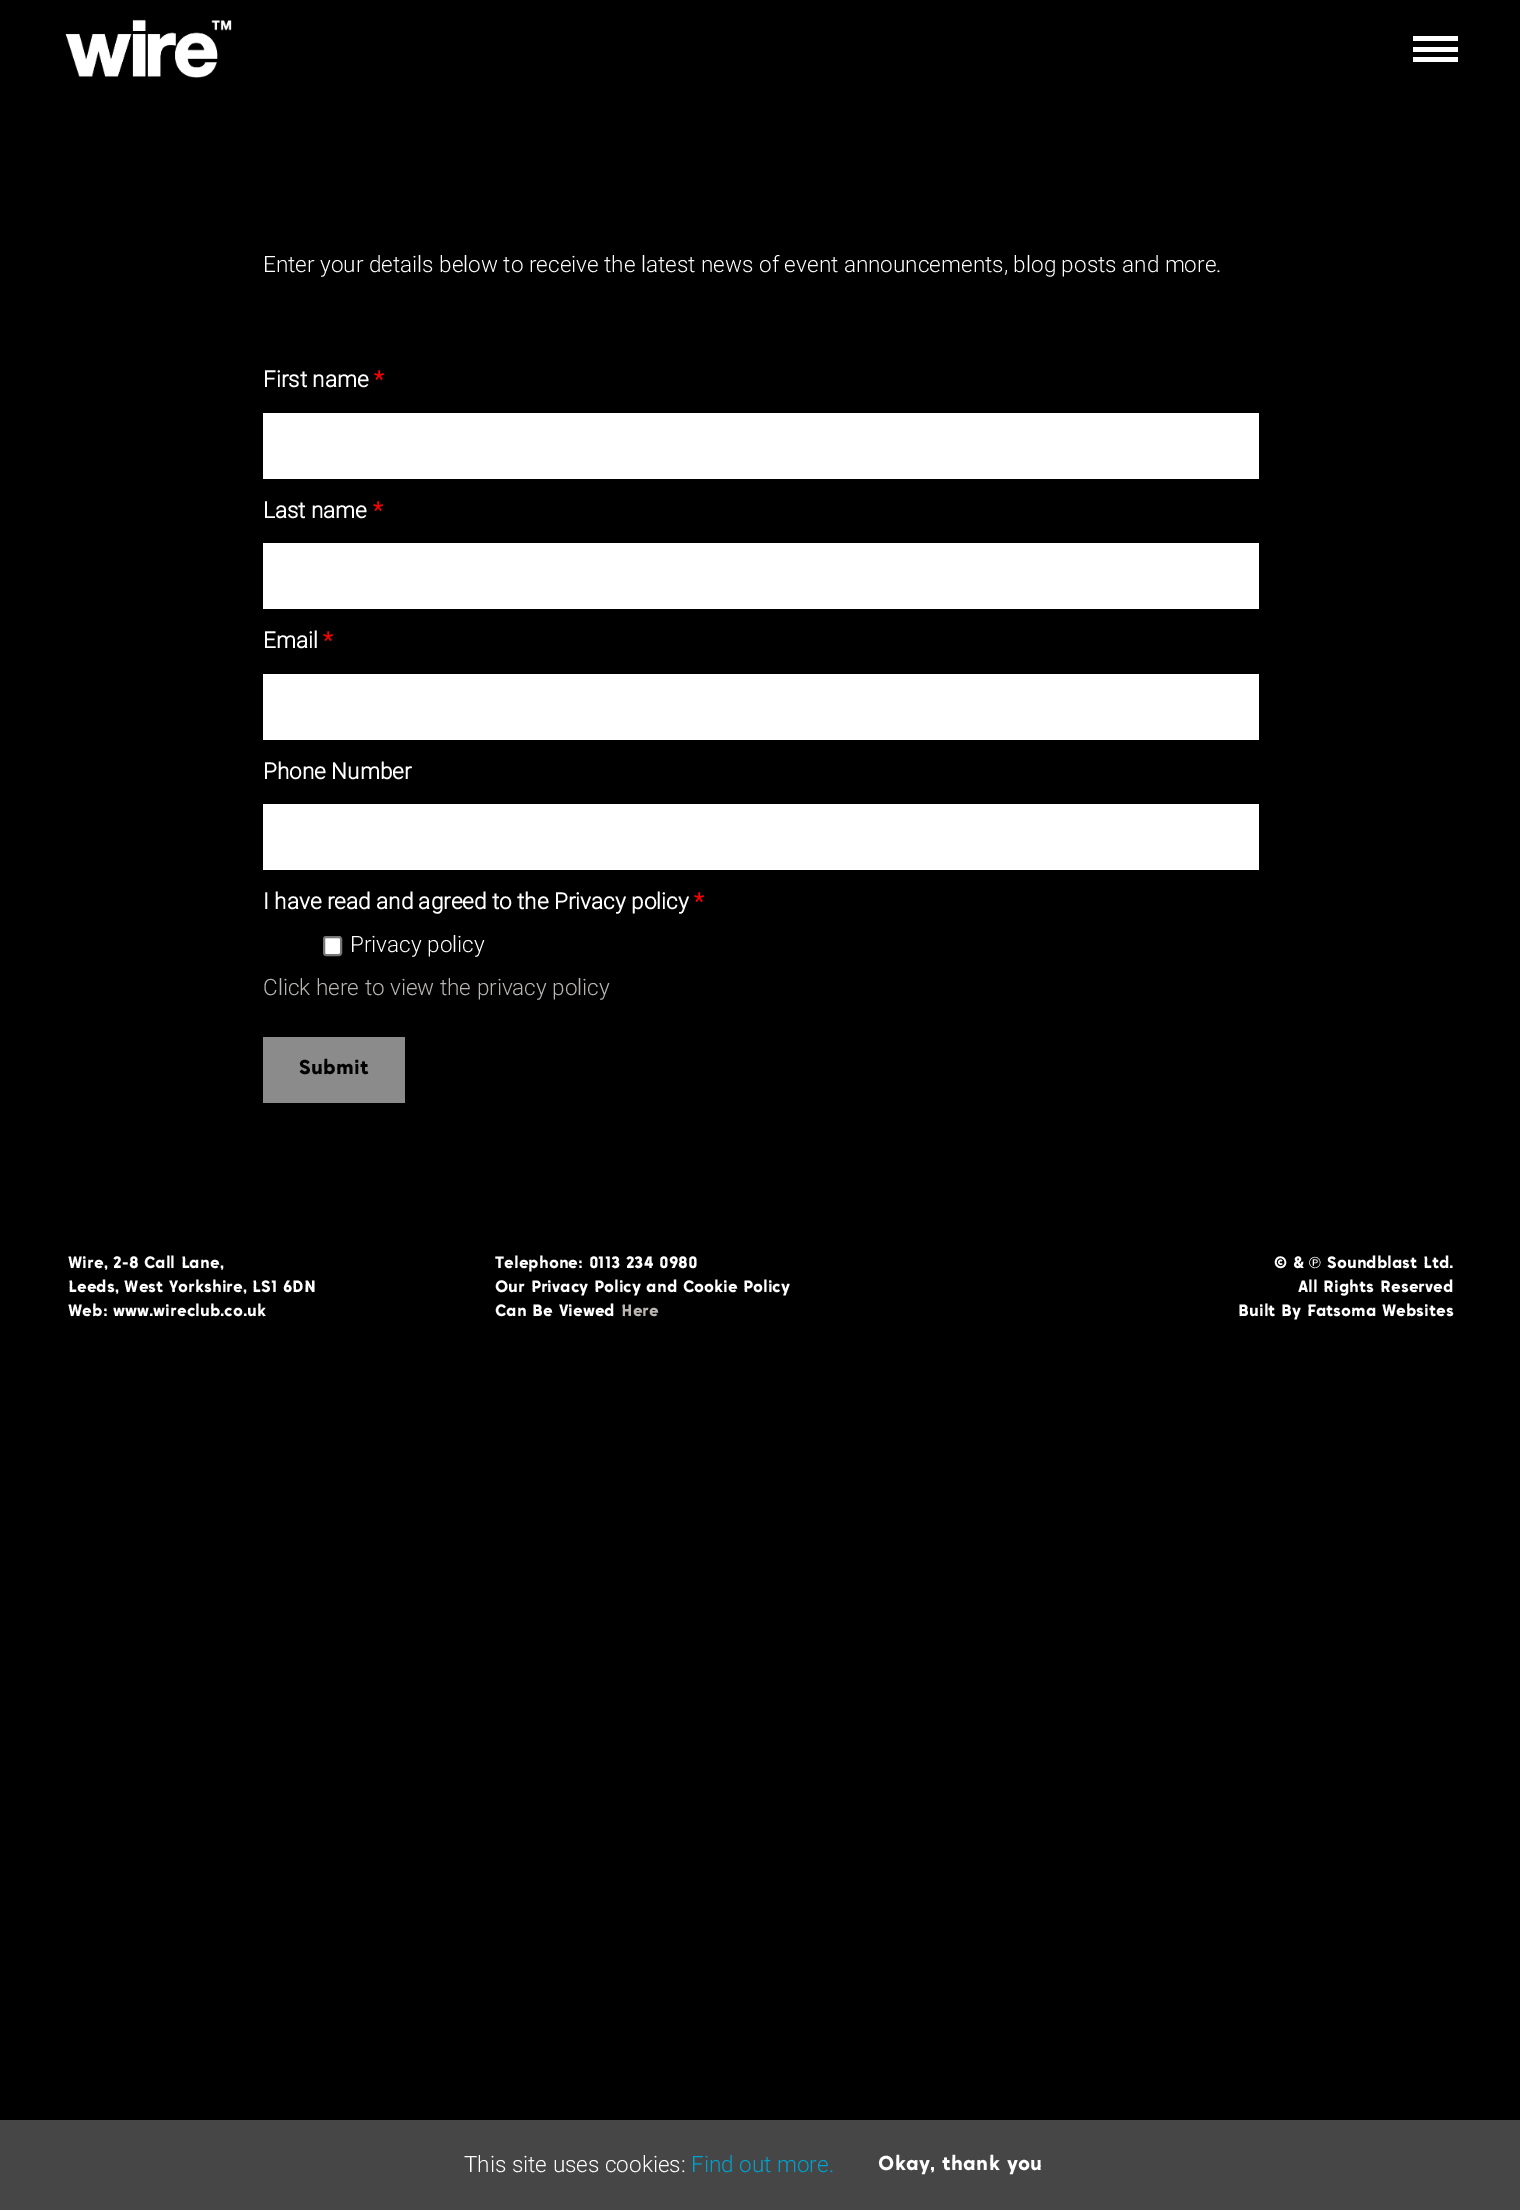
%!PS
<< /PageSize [1520 2210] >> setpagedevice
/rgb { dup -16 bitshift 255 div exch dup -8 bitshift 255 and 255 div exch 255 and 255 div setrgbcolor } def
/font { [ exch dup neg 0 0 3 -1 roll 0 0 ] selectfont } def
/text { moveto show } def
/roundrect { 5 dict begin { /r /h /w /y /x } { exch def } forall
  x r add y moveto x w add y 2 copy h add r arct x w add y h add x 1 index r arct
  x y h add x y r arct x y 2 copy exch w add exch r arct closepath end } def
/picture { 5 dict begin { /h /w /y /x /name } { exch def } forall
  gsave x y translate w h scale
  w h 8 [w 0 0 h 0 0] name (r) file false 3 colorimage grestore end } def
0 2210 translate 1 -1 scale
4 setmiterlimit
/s1 { /Roboto-Light 22.5 font 16#FFFFFF rgb } def
/s2 { /Roboto-Bold 22.5 font 16#FFFFFF rgb } def
/s3 { /Roboto-Bold 22.5 font 16#FF0000 rgb } def
/s4 { /Roboto-Light 22.5 font 16#BAB7B3 rgb } def
/s5 { /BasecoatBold-Regular 16 font 16#FFFFFF rgb } def
/s6 { /BasecoatBold-Regular 16 font 16#BAB7B3 rgb } def
/s7 { /LiberationSans-Regular 16 font 16#FFFFFF rgb } def
/s8 { /Roboto-Light 22.5 font 16#00A2CD rgb } def
16#000000 rgb
0 0 1520 2210 rectfill
(pic1.raw) 65 19 167 59 picture
16#FFFFFF rgb
1413 36 45 5 rectfill
1413 47 45 5 rectfill
1413 57 45 5 rectfill
s1
(Enter your details below to receive the latest news of event announcements, blog posts and more.) 263 272 text
s2
(First name) 263 387 text
s3
(*) 374 387 text
16#FFFFFF rgb
263 413 996 66 rectfill
(Last name) 263 518 text
s3
(*) 373 518 text
16#FFFFFF rgb
263 543 996 66 rectfill
(Email) 263 648 text
s3
(*) 323 648 text
16#FFFFFF rgb
263 674 996 66 rectfill
(Phone Number) 263 779 text
263 804 996 66 rectfill
(I have read and agreed to the Privacy policy) 263 909 text
s3
(*) 694 909 text
16#FFFFFF rgb
324 937 17 18 2 roundrect gsave fill grestore
16#767676 rgb
2 setlinewidth
stroke
s1
(Privacy policy) 350 952 text
s4
(Click here to view the privacy policy) 263 995 text
16#8B8B8B rgb
263 1037 142 66 rectfill
/BasecoatBold-Regular 19.5 font
16#000000 rgb
299 1074 moveto 0.25 0 (Submit) ashow
s5
(Wire, 2-8 Call Lane,) 68 1268 text
(Leeds, West Yorkshire, LS1 6DN) 68 1292 text
(Web: www.wireclub.co.uk) 68 1316 text
(Telephone: 0113 234 0980) 495 1268 text
(Our Privacy Policy and Cookie Policy) 495 1292 text
(Can Be Viewed) 495 1316 text
s6
(Here) 621 1316 text
s5
(© &) 1274 1268 text
s7
(℗) 1309 1268 text
s5
(Soundblast Ltd.) 1327 1268 text
(All Rights Reserved) 1298 1292 text
(Built By Fatsoma Websites) 1238 1316 text
16#464646 rgb
0 2120 1520 90 rectfill
s1
(This site uses cookies:) 464 2172 text
s8
(Find out more.) 691 2172 text
/BasecoatBold-Regular 19.5 font
16#FFFFFF rgb
878 2170 moveto 0.25 0 (Okay, thank you) ashow
showpage
